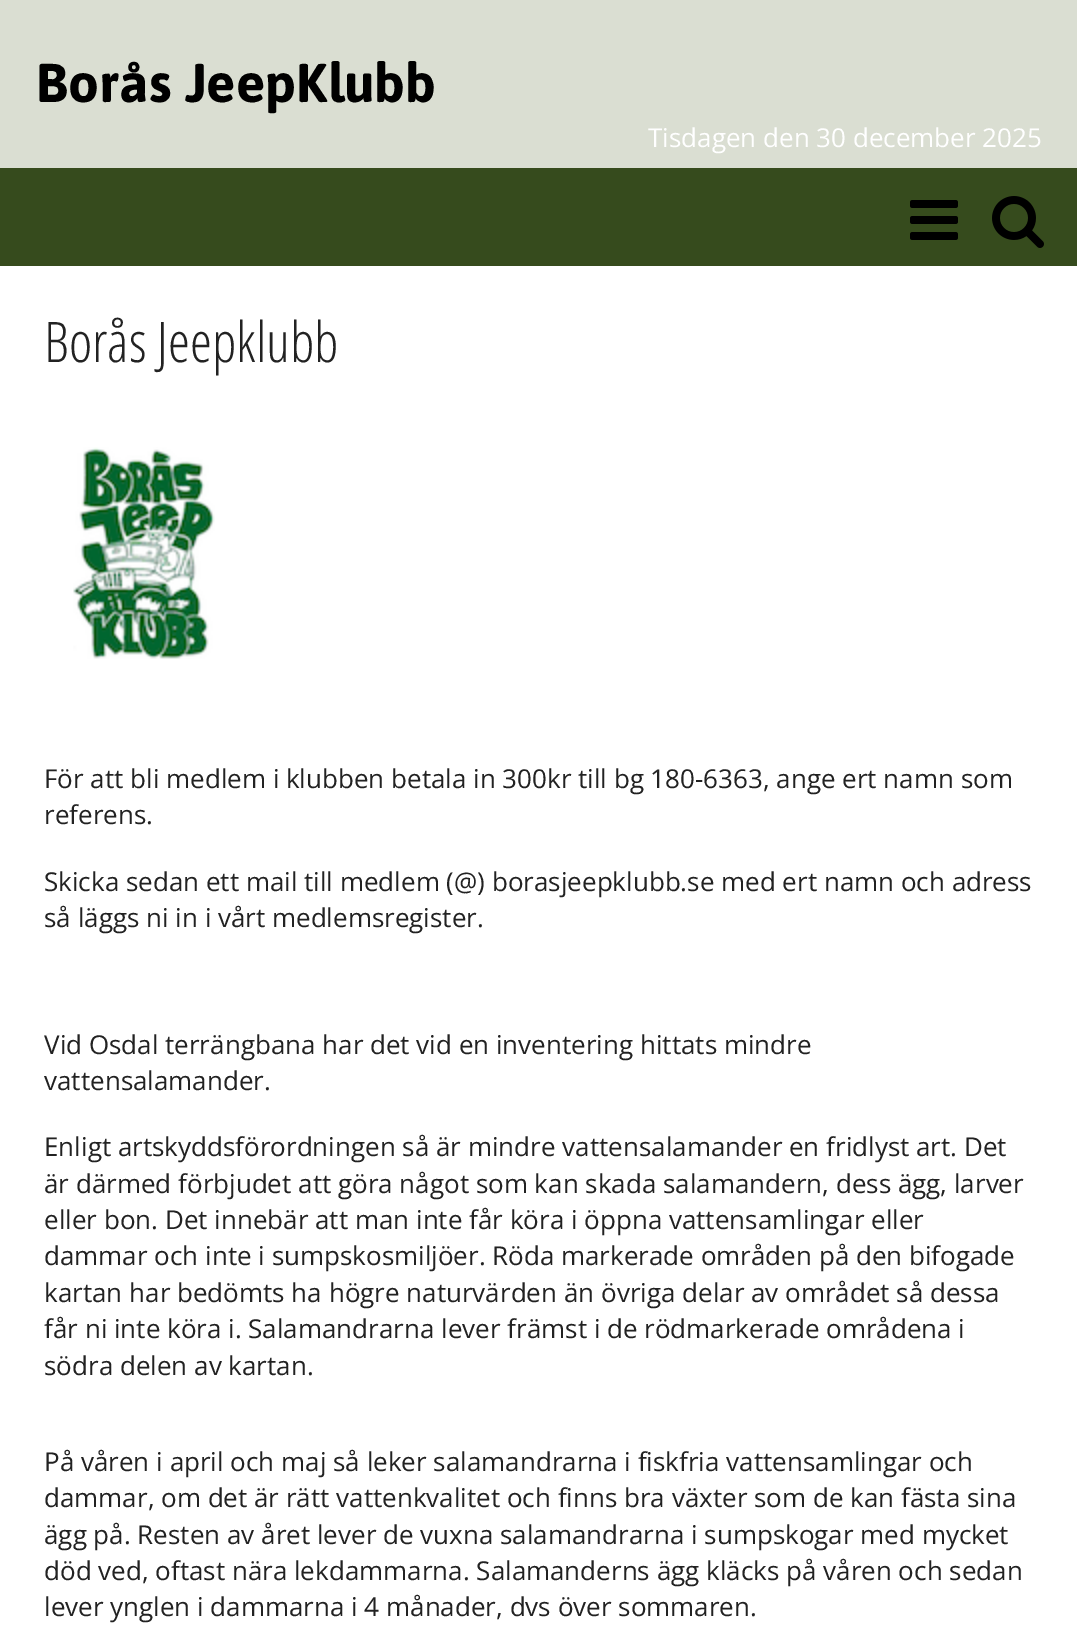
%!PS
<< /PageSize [1077 1642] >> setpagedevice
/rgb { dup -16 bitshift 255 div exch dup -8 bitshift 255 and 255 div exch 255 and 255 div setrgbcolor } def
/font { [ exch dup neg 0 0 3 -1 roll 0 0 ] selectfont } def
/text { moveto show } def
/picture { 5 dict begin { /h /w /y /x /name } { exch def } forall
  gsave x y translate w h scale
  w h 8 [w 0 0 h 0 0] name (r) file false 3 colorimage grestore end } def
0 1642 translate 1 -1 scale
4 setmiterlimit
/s1 { /Asap-Bold 54.5 font 16#000000 rgb } def
/s2 { /OpenSans-Regular 26 font 16#FFFFFF rgb } def
/s3 { /OpenSansCondensed-Light 56 font 16#222222 rgb } def
/s4 { /OpenSans-Regular 26 font 16#222222 rgb } def
16#DADED2 rgb
0 0 1077 1642 rectfill
s1
(Borås JeepKlubb) 36 102 text
s2
(Tisdagen den 30 december 2025) 648 147 text
16#364B1D rgb
0 168 1077 98 rectfill
(pic1.raw) 910 200 48 40 picture
(pic2.raw) 992 196 52 52 picture
16#FFFFFF rgb
0 266 1077 1376 rectfill
s3
(Borås Jeepklubb) 44 362 text
(pic3.raw) 73 447 142 212 picture
s4
(För att bli medlem i klubben betala in 300kr till bg 180-6363, ange ert namn som) 44 788 text
(referens.) 44 824 text
(Skicka sedan ett mail till medlem \(@\) borasjeepklubb.se med ert namn och adress) 44 891 text
(så läggs ni in i vårt medlemsregister.) 44 927 text
(Vid Osdal terrängbana har det vid en inventering hittats mindre) 44 1054 text
(vattensalamander.) 44 1090 text
(Enligt artskyddsförordningen så är mindre vattensalamander en fridlyst art. Det) 44 1156 text
(är därmed förbjudet att göra något som kan skada salamandern, dess ägg, larver) 44 1193 text
(eller bon. Det innebär att man inte får köra i öppna vattensamlingar eller) 44 1229 text
(dammar och inte i sumpskosmiljöer. Röda markerade områden på den bifogade) 44 1265 text
(kartan har bedömts ha högre naturvärden än övriga delar av området så dessa) 44 1302 text
(får ni inte köra i. Salamandrarna lever främst i de rödmarkerade områdena i) 44 1338 text
(södra delen av kartan.) 44 1375 text
(På våren i april och maj så leker salamandrarna i fiskfria vattensamlingar och) 44 1471 text
(dammar, om det är rätt vattenkvalitet och finns bra växter som de kan fästa sina) 44 1507 text
(ägg på. Resten av året lever de vuxna salamandrarna i sumpskogar med mycket) 44 1544 text
(död ved, oftast nära lekdammarna. Salamanderns ägg kläcks på våren och sedan) 44 1580 text
(lever ynglen i dammarna i 4 månader, dvs över sommaren.) 44 1616 text
showpage
